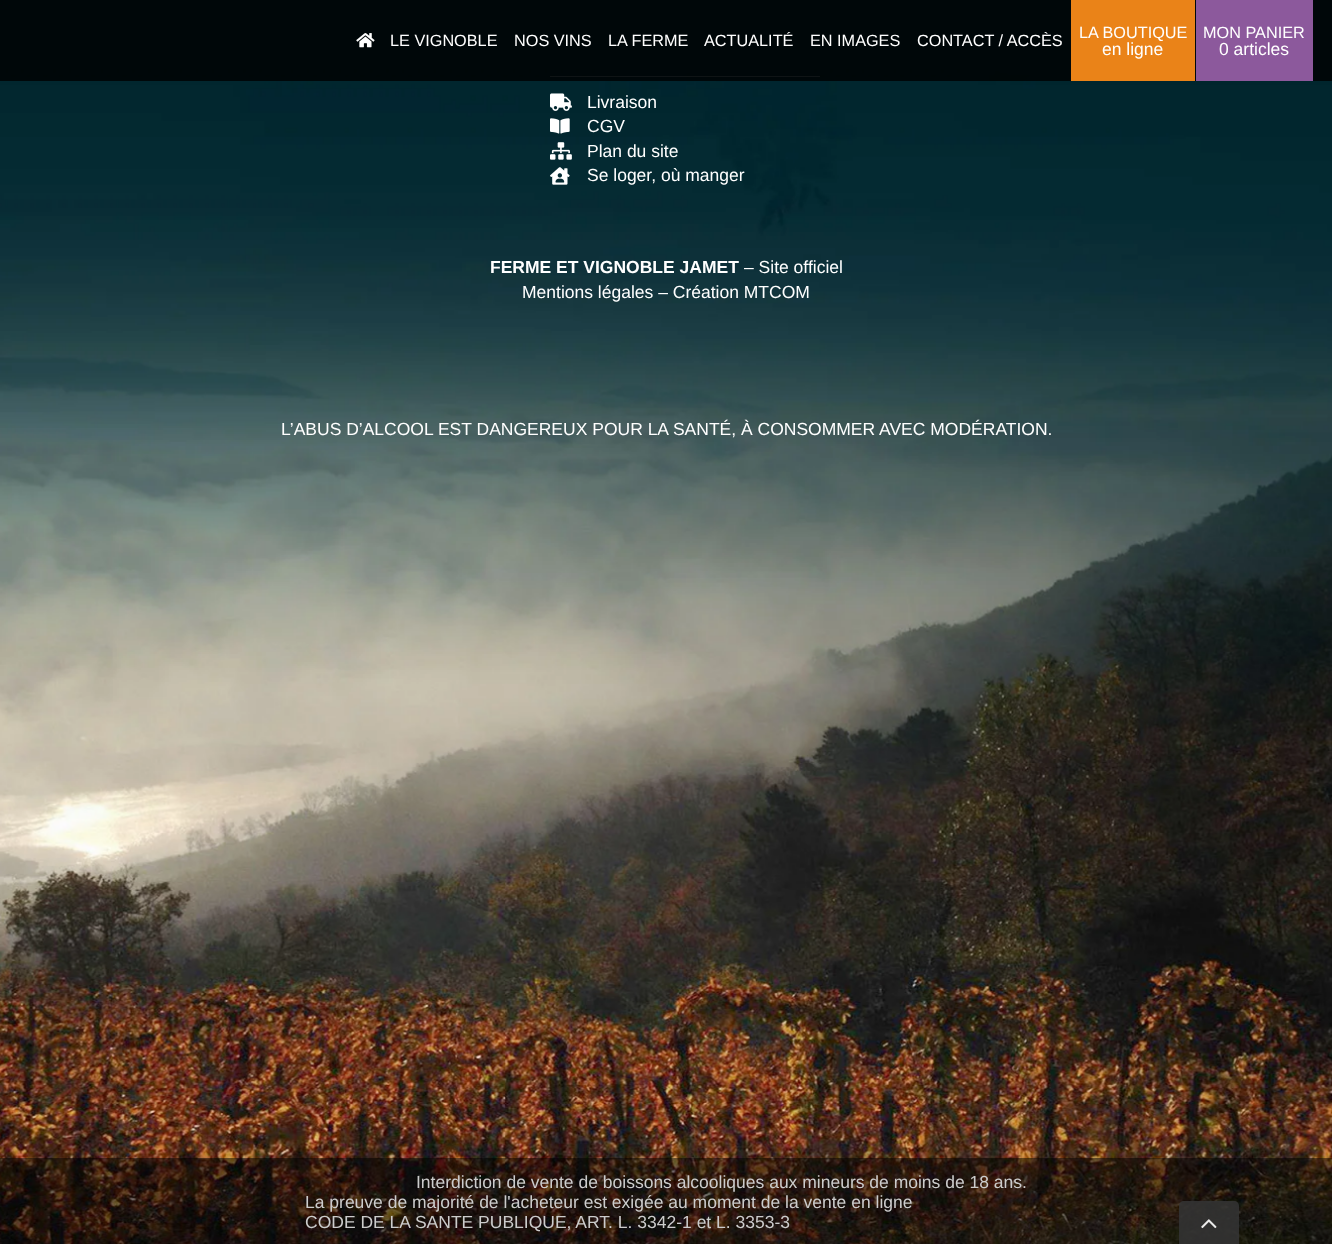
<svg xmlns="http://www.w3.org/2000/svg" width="1332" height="1244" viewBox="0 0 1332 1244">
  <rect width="100%" height="100%" fill="rgb(255,255,255)"/>
  <image x="0" y="0" width="1332" height="1244" href="pic2.png"/>
  <rect x="550" y="76" width="270" height="1" fill="rgba(255,255,255,0.3)"/>
  <rect x="0" y="0" width="1332" height="81" fill="rgba(0,0,0,0.8)"/>
  <image x="356" y="33" width="19" height="15" href="pic1.png"/>
  <g font-family="Arimo" font-size="16.25" fill="rgb(255,255,255)">
    <text x="390" y="46">LE VIGNOBLE</text>
    <text x="514" y="46">NOS VINS</text>
    <text x="608" y="46">LA FERME</text>
    <text x="704" y="46">ACTUALITÉ</text>
    <text x="810" y="46">EN IMAGES</text>
    <text x="917" y="46">CONTACT / ACCÈS</text>
  </g>
  <rect x="1071" y="0" width="124" height="81" fill="rgb(234,131,24)"/>
  <text x="1079" y="38" font-family="Arimo" font-size="16.25" fill="rgb(255,255,255)">LA BOUTIQUE</text>
  <text x="1102" y="55" font-family="Arimo" font-size="17.5" fill="rgb(255,255,255)">en ligne</text>
  <rect x="1196" y="0" width="117" height="81" fill="rgb(140,89,156)"/>
  <text x="1203" y="38" font-family="Arimo" font-size="16.25" fill="rgb(255,255,255)">MON PANIER</text>
  <text x="1219" y="55" font-family="Arimo" font-size="17.5" fill="rgb(255,255,255)">0 articles</text>
  <image x="550" y="93" width="22" height="18" href="pic3.png"/>
  <text x="587" y="108" font-family="Arimo" font-size="17.5" fill="rgb(255,255,255)">Livraison</text>
  <image x="550" y="118" width="20" height="16" href="pic4.png"/>
  <text x="587" y="132" font-family="Arimo" font-size="17.5" fill="rgb(255,255,255)">CGV</text>
  <image x="550" y="142" width="22" height="18" href="pic5.png"/>
  <text x="587" y="157" font-family="Arimo" font-size="17.5" fill="rgb(255,255,255)">Plan du site</text>
  <image x="550" y="167" width="20" height="18" href="pic6.png"/>
  <text x="587" y="181" font-family="Arimo" font-size="17.5" fill="rgb(255,255,255)">Se loger, où manger</text>
  <text x="490" y="273" font-family="Arimo" font-size="17.5" font-weight="bold" fill="rgb(255,255,255)">FERME ET VIGNOBLE JAMET</text>
  <g font-family="Arimo" font-size="17.5" fill="rgb(255,255,255)">
    <text x="744" y="273">– Site officiel</text>
    <text x="522" y="298">Mentions légales – Création MTCOM</text>
    <text x="281" y="435">L’ABUS D’ALCOOL EST DANGEREUX POUR LA SANTÉ, À CONSOMMER AVEC MODÉRATION.</text>
  </g>
  <rect x="0" y="1158" width="1332" height="86" fill="rgba(0,0,0,0.5)"/>
  <g font-family="Arimo" font-size="17.5" fill="rgb(204,204,204)">
    <text x="416" y="1188">Interdiction de vente de boissons alcooliques aux mineurs de moins de 18 ans.</text>
    <text>
      <tspan x="305" y="1208">La preuve de majorité de l'acheteur est exigée au moment de la vente en ligne</tspan>
      <tspan x="305" y="1228">CODE DE LA SANTE PUBLIQUE, ART. L. 3342-1 et L. 3353-3</tspan>
    </text>
  </g>
  <path d="M1184 1201H1234C1237 1201 1239 1203 1239 1206V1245H1179V1206C1179 1203 1181 1201 1184 1201Z" fill="rgba(51,51,51,0.9)"/>
  <image x="1201" y="1219" width="16" height="10" href="pic7.png"/>
</svg>
